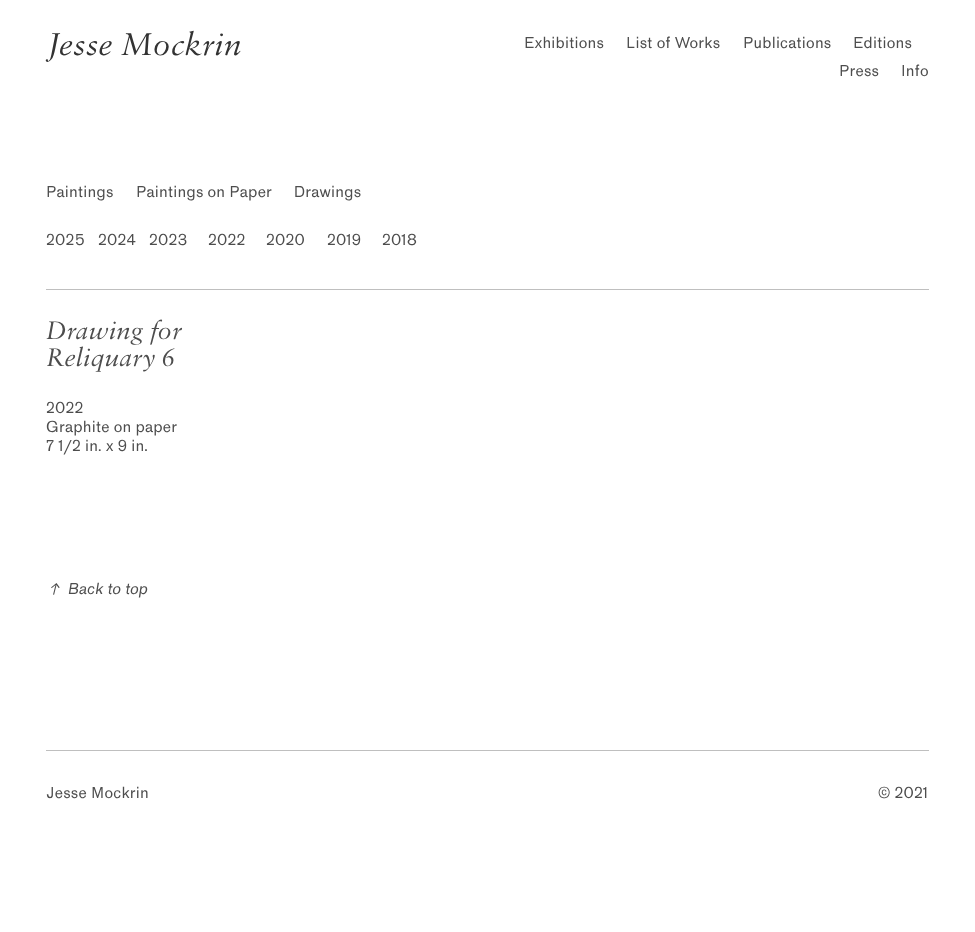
<svg xmlns="http://www.w3.org/2000/svg" width="975" height="932" viewBox="0 0 975 932">
  <rect width="100%" height="100%" fill="rgb(255,255,255)"/>
  <text x="46" y="55" font-family="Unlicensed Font" font-size="33.5" font-style="italic" fill="rgb(51,51,51)">Jesse Mockrin</text>
  <g font-family="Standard" font-size="14.75" letter-spacing="0.25" fill="rgb(77,77,77)">
    <text x="524" y="48">Exhibitions</text>
    <text x="626" y="48">List of Works</text>
    <text x="743" y="48">Publications</text>
    <text x="853" y="48">Editions</text>
    <text x="839" y="76">Press</text>
    <text x="901" y="76">Info</text>
    <text x="46" y="197">Paintings</text>
    <text x="136" y="197">Paintings on Paper</text>
    <text x="294" y="197">Drawings</text>
    <text x="46" y="245">2025</text>
    <text x="98" y="245">2024</text>
    <text x="149" y="245">2023</text>
    <text x="208" y="245">2022</text>
    <text x="266" y="245">2020</text>
    <text x="327" y="245">2019</text>
    <text x="382" y="245">2018</text>
  </g>
  <rect x="46" y="289" width="883" height="1" fill="rgb(191,191,191)"/>
  <g font-family="Unlicensed Font" font-size="27" font-style="italic" fill="rgb(77,77,77)">
    <text>
      <tspan x="46" y="339">Drawing for</tspan>
      <tspan x="46" y="366">Reliquary 6</tspan>
    </text>
  </g>
  <g font-family="Standard" font-size="14.75" letter-spacing="0.25" fill="rgb(77,77,77)">
    <text>
      <tspan x="46" y="413">2022</tspan>
      <tspan x="46" y="432">Graphite on paper</tspan>
      <tspan x="46" y="451">7 1/2 in. x 9 in.</tspan>
    </text>
  </g>
  <image x="51" y="583" width="9" height="12" href="pic1.png"/>
  <text x="67" y="594" font-family="Standard" font-size="14.75" font-style="italic" letter-spacing="0.25" fill="rgb(77,77,77)">Back to top</text>
  <rect x="46" y="750" width="883" height="1" fill="rgb(191,191,191)"/>
  <g font-family="Standard" font-size="14.75" letter-spacing="0.25" fill="rgb(77,77,77)">
    <text x="46" y="798">Jesse</text>
    <text x="91" y="798">Mockrin</text>
    <text x="878" y="798">© 2021</text>
  </g>
</svg>
